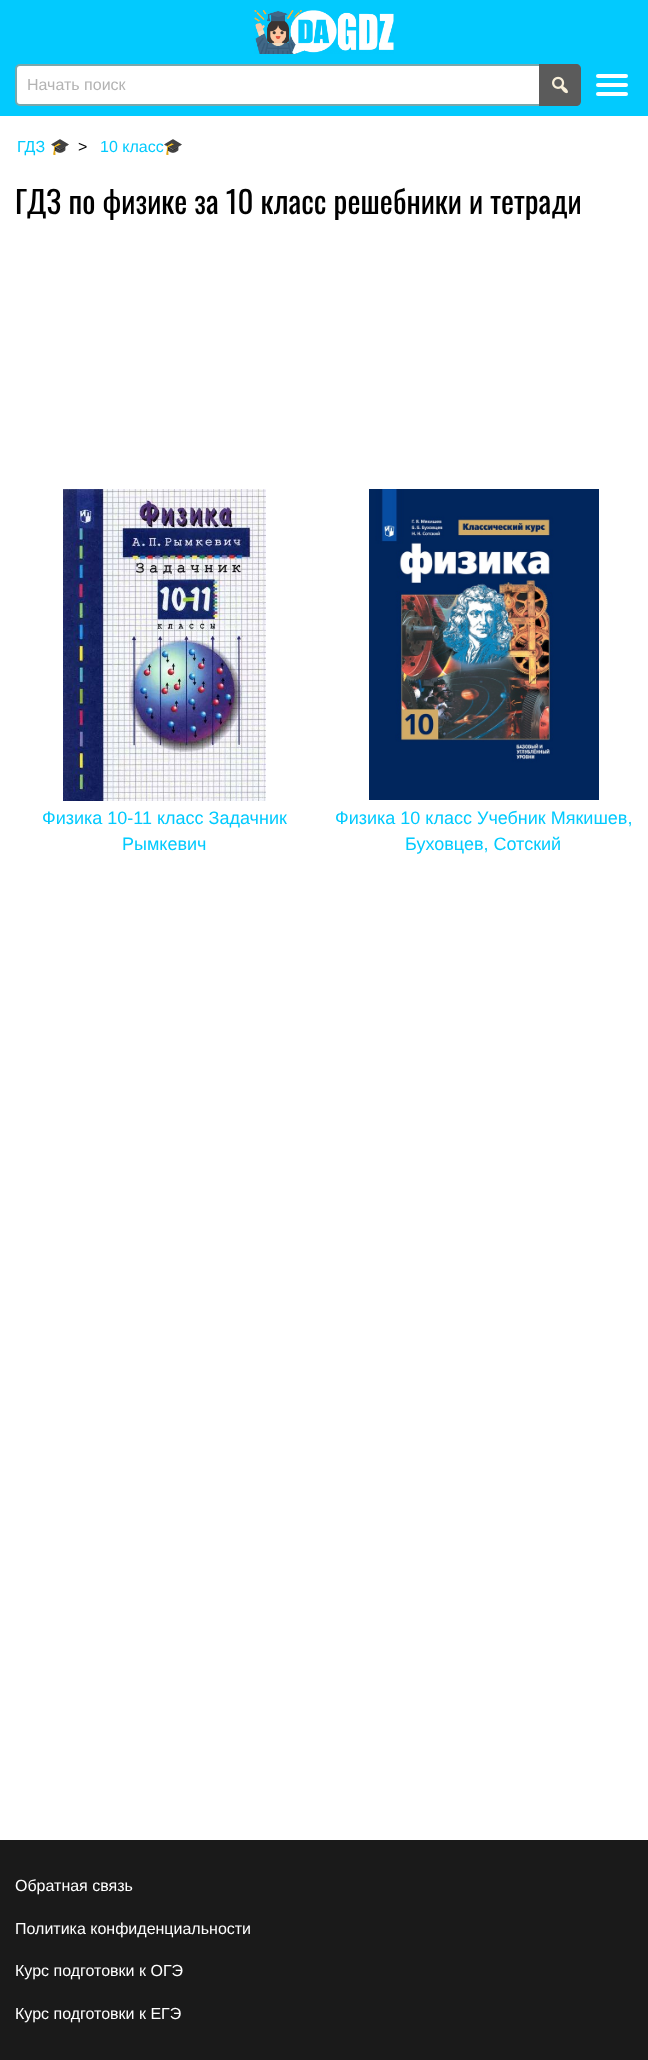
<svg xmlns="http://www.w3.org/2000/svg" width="648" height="2060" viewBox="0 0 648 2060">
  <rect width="100%" height="100%" fill="rgb(255,255,255)"/>
  <rect x="0" y="0" width="648" height="116" fill="rgb(2,202,254)"/>
  <image x="254" y="10" width="140" height="44" href="pic1.png"/>
  <rect x="16" y="65" width="564" height="40" rx="4" fill="rgb(255,255,255)" stroke="rgb(123,167,171)" stroke-width="2"/>
  <text x="27" y="90" font-family="Liberation Sans" font-size="16" fill="rgb(179,179,179)">Начать поиск</text>
  <path d="M539 64H576C579 64 581 66 581 69V101C581 104 579 106 576 106H539Z" fill="rgb(91,91,91)"/>
  <image x="552" y="76" width="16" height="18" href="pic2.png"/>
  <rect x="596" y="83" width="32" height="4" rx="2" fill="rgb(255,255,255)"/>
  <rect x="596" y="74" width="32" height="4" rx="2" fill="rgb(255,255,255)"/>
  <rect x="596" y="92" width="32" height="4" rx="2" fill="rgb(255,255,255)"/>
  <text x="17" y="152" font-family="Liberation Sans" font-size="16" fill="rgb(2,202,254)">ГДЗ</text>
  <text x="50" y="152" font-family="Noto Color Emoji" font-size="16" fill="rgb(2,202,254)">🎓</text>
  <text x="78" y="152" font-family="Liberation Sans" font-size="16" fill="rgb(0,0,0)">&gt;</text>
  <text x="100" y="152" font-family="Liberation Sans" font-size="16" fill="rgb(2,202,254)">10 класс</text>
  <text x="163" y="152" font-family="Noto Color Emoji" font-size="16" fill="rgb(2,202,254)">🎓</text>
  <text x="15" y="214" font-family="Oswald" font-size="31" fill="rgb(0,0,0)">ГДЗ по физике за 10 класс решебники и тетради</text>
  <image x="63" y="489" width="203" height="312" href="pic3.png"/>
  <g font-family="Liberation Sans" font-size="18" fill="rgb(2,202,254)">
    <text x="42" y="824">Физика 10-11 класс Задачник</text>
    <text x="122" y="850">Рымкевич</text>
  </g>
  <image x="369" y="489" width="230" height="311" href="pic4.png"/>
  <g font-family="Liberation Sans" font-size="18" fill="rgb(2,202,254)">
    <text x="335" y="824">Физика 10 класс Учебник Мякишев,</text>
    <text x="405" y="850">Буховцев, Сотский</text>
  </g>
  <rect x="0" y="1840" width="648" height="220" fill="rgb(26,26,26)"/>
  <g font-family="Liberation Sans" font-size="16" fill="rgb(255,255,255)">
    <text x="15" y="1891">Обратная связь</text>
    <text x="15" y="1934">Политика конфиденциальности</text>
    <text x="15" y="1976">Курс подготовки к ОГЭ</text>
    <text x="15" y="2019">Курс подготовки к ЕГЭ</text>
  </g>
</svg>
